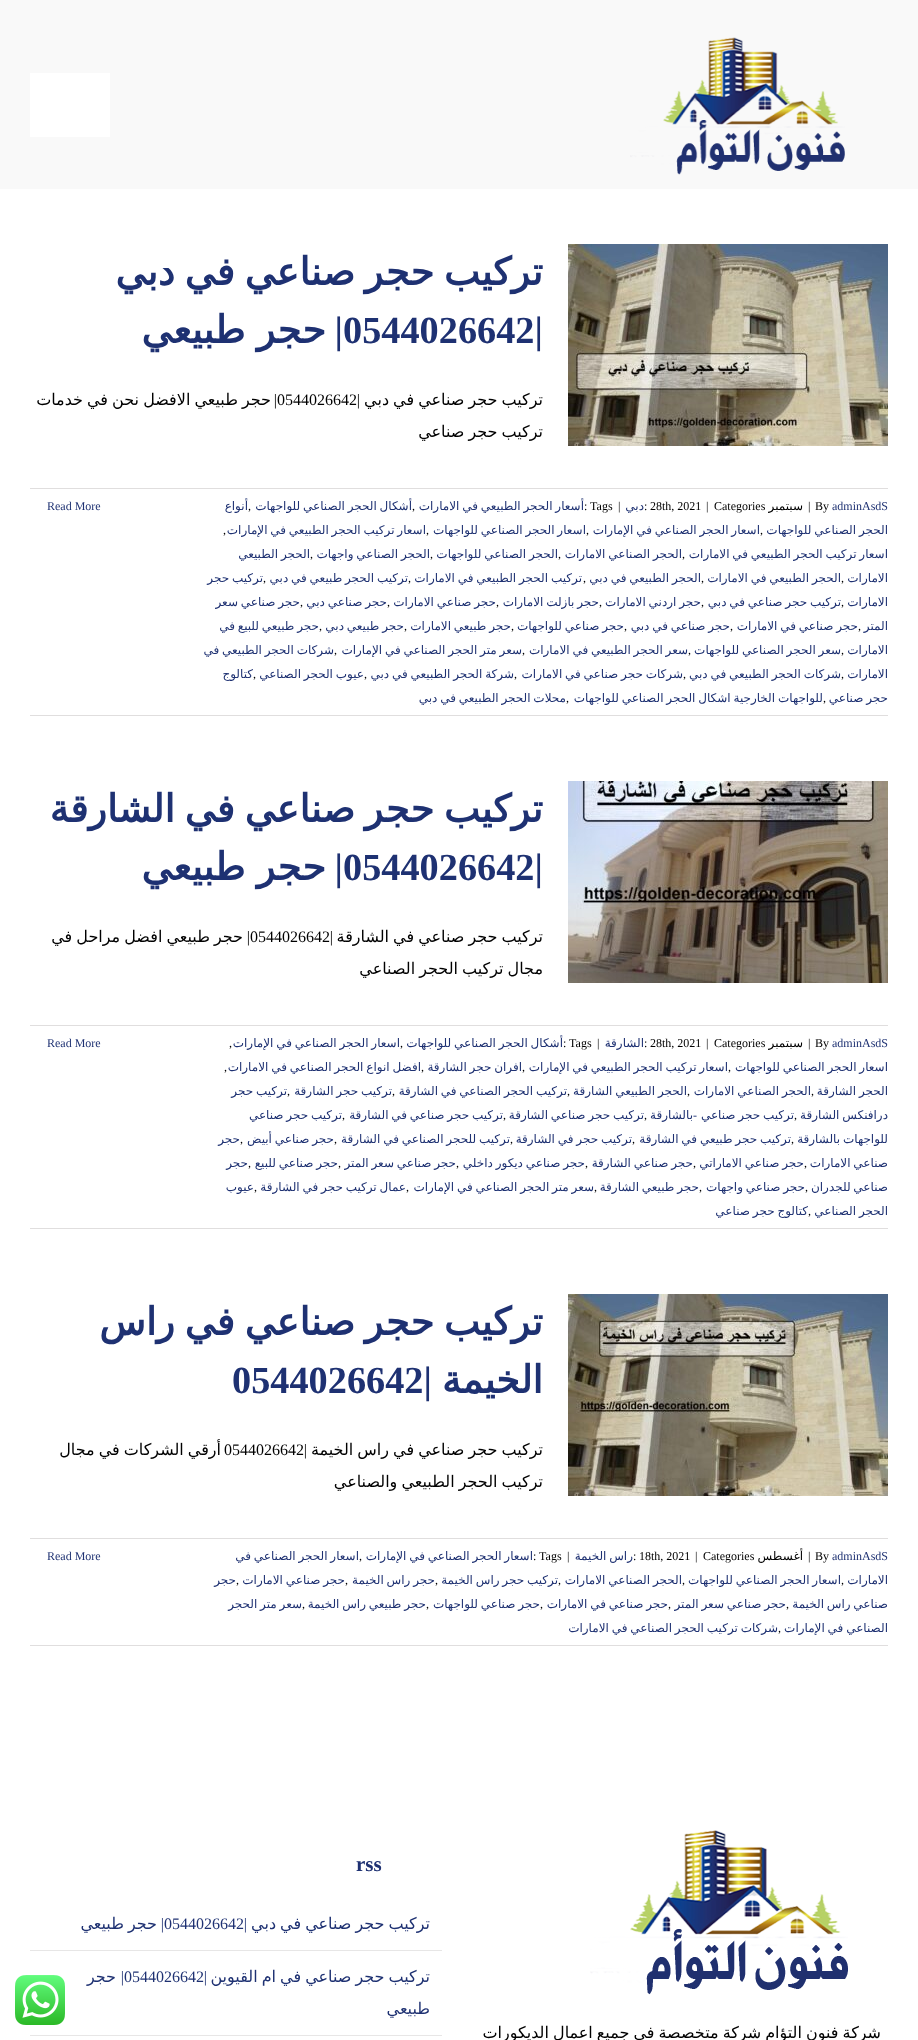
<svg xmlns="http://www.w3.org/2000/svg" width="918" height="2040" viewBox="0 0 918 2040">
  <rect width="100%" height="100%" fill="rgb(255,255,255)"/>
  <rect x="0" y="0" width="918" height="189" fill="rgb(249,249,249)"/>
  <image x="630" y="37" width="215" height="138" href="pic1.png"/>
  <rect x="30" y="73" width="80" height="64" fill="rgb(255,255,255)"/>
  <image x="568" y="244" width="320" height="202" href="pic2.png"/>
  <text x="543" y="285" word-spacing="-2.5" font-family="DejaVu Sans" font-size="38.3" font-weight="bold" direction="rtl" fill="rgb(30,49,114)">تركيب حجر صناعي في دبي</text>
  <text x="343" y="343" font-family="Liberation Serif" font-size="38.3" font-weight="bold" fill="rgb(30,49,114)">0544026642|</text>
  <text x="343" y="343" font-family="Liberation Serif" font-size="38.3" font-weight="bold" direction="rtl" fill="rgb(30,49,114)">|</text>
  <text x="326" y="343" word-spacing="-1" font-family="DejaVu Sans" font-size="38.3" font-weight="bold" direction="rtl" fill="rgb(30,49,114)">حجر طبيعي</text>
  <text x="543" y="405" word-spacing="-1" font-family="DejaVu Sans" font-size="16" direction="rtl" fill="rgb(0,0,0)">تركيب حجر صناعي في دبي</text>
  <text x="360" y="405" font-family="Liberation Serif" font-size="16" direction="rtl" fill="rgb(0,0,0)">|</text>
  <text x="277" y="405" font-family="Liberation Serif" font-size="16" fill="rgb(0,0,0)">0544026642</text>
  <text x="277" y="405" font-family="Liberation Serif" font-size="16" direction="rtl" fill="rgb(0,0,0)">|</text>
  <g font-family="DejaVu Sans" font-size="16" direction="rtl" fill="rgb(0,0,0)">
    <text x="271" y="405" word-spacing="-1">حجر طبيعي الافضل نحن في خدمات</text>
    <text x="543" y="437" word-spacing="-1">تركيب حجر صناعي</text>
  </g>
  <rect x="30" y="488" width="858" height="1" fill="rgb(224,222,222)"/>
  <rect x="30" y="715" width="858" height="1" fill="rgb(224,222,222)"/>
  <text x="832" y="510" font-family="Liberation Serif" font-size="12" fill="rgb(30,49,114)">adminAsdS</text>
  <g font-family="Liberation Serif" font-size="12" fill="rgb(0,0,0)">
    <text x="815" y="510">By</text>
    <text x="808" y="510">|</text>
  </g>
  <text x="803" y="510" font-family="DejaVu Sans" font-size="12" direction="rtl" fill="rgb(0,0,0)">سبتمبر</text>
  <g font-family="Liberation Serif" font-size="12" fill="rgb(0,0,0)">
    <text x="714" y="510">Categories</text>
    <text x="706" y="510">|</text>
    <text x="650" y="510">28th, 2021</text>
    <text x="644" y="510">:</text>
  </g>
  <text x="644" y="510" font-family="DejaVu Sans" font-size="12" direction="rtl" fill="rgb(30,49,114)">دبي</text>
  <g font-family="Liberation Serif" font-size="12" fill="rgb(0,0,0)">
    <text x="618" y="510">|</text>
    <text x="584" y="510">: Tags</text>
  </g>
  <text x="584" y="510" word-spacing="-1" font-family="DejaVu Sans" font-size="12" direction="rtl" fill="rgb(30,49,114)">أسعار الحجر الطبيعي في الامارات</text>
  <text x="412" y="510" font-family="Liberation Serif" font-size="12" fill="rgb(0,0,0)">,</text>
  <text x="412" y="510" word-spacing="-1" font-family="DejaVu Sans" font-size="12" direction="rtl" fill="rgb(30,49,114)">أشكال الحجر الصناعي للواجهات</text>
  <text x="248" y="510" font-family="Liberation Serif" font-size="12" fill="rgb(0,0,0)">,</text>
  <g font-family="DejaVu Sans" font-size="12" direction="rtl" fill="rgb(30,49,114)">
    <text x="248" y="510">أنواع</text>
    <text x="888" y="534" word-spacing="-1">الحجر الصناعي للواجهات</text>
  </g>
  <text x="760" y="534" font-family="Liberation Serif" font-size="12" fill="rgb(0,0,0)">,</text>
  <text x="760" y="534" word-spacing="-1" font-family="DejaVu Sans" font-size="12" direction="rtl" fill="rgb(30,49,114)">اسعار الحجر الصناعي في الإمارات</text>
  <text x="586" y="534" font-family="Liberation Serif" font-size="12" fill="rgb(0,0,0)">,</text>
  <text x="586" y="534" word-spacing="-1" font-family="DejaVu Sans" font-size="12" direction="rtl" fill="rgb(30,49,114)">اسعار الحجر الصناعي للواجهات</text>
  <text x="426" y="534" font-family="Liberation Serif" font-size="12" fill="rgb(0,0,0)">,</text>
  <text x="426" y="534" word-spacing="-1" font-family="DejaVu Sans" font-size="12" direction="rtl" fill="rgb(30,49,114)">اسعار تركيب الحجر الطبيعي في الإمارات</text>
  <text x="223" y="534" font-family="Liberation Serif" font-size="12" fill="rgb(0,0,0)">,</text>
  <text x="888" y="558" word-spacing="-1" font-family="DejaVu Sans" font-size="12" direction="rtl" fill="rgb(30,49,114)">اسعار تركيب الحجر الطبيعي في الامارات</text>
  <text x="682" y="558" font-family="Liberation Serif" font-size="12" fill="rgb(0,0,0)">,</text>
  <text x="682" y="558" word-spacing="-1" font-family="DejaVu Sans" font-size="12" direction="rtl" fill="rgb(30,49,114)">الحجر الصناعي الامارات</text>
  <text x="558" y="558" font-family="Liberation Serif" font-size="12" fill="rgb(0,0,0)">,</text>
  <text x="558" y="558" word-spacing="-1" font-family="DejaVu Sans" font-size="12" direction="rtl" fill="rgb(30,49,114)">الحجر الصناعي للواجهات</text>
  <text x="430" y="558" font-family="Liberation Serif" font-size="12" fill="rgb(0,0,0)">,</text>
  <text x="430" y="558" word-spacing="-1" font-family="DejaVu Sans" font-size="12" direction="rtl" fill="rgb(30,49,114)">الحجر الصناعي واجهات</text>
  <text x="310" y="558" font-family="Liberation Serif" font-size="12" fill="rgb(0,0,0)">,</text>
  <g font-family="DejaVu Sans" font-size="12" direction="rtl" fill="rgb(30,49,114)">
    <text x="310" y="558" word-spacing="-1">الحجر الطبيعي</text>
    <text x="888" y="582">الامارات</text>
  </g>
  <text x="841" y="582" font-family="Liberation Serif" font-size="12" fill="rgb(0,0,0)">,</text>
  <text x="841" y="582" word-spacing="-1" font-family="DejaVu Sans" font-size="12" direction="rtl" fill="rgb(30,49,114)">الحجر الطبيعي في الامارات</text>
  <text x="701" y="582" font-family="Liberation Serif" font-size="12" fill="rgb(0,0,0)">,</text>
  <text x="701" y="582" word-spacing="-1" font-family="DejaVu Sans" font-size="12" direction="rtl" fill="rgb(30,49,114)">الحجر الطبيعي في دبي</text>
  <text x="583" y="582" font-family="Liberation Serif" font-size="12" fill="rgb(0,0,0)">,</text>
  <text x="582" y="582" word-spacing="-1" font-family="DejaVu Sans" font-size="12" direction="rtl" fill="rgb(30,49,114)">تركيب الحجر الطبيعي في الامارات</text>
  <text x="408" y="582" font-family="Liberation Serif" font-size="12" fill="rgb(0,0,0)">,</text>
  <text x="408" y="582" word-spacing="-1" font-family="DejaVu Sans" font-size="12" direction="rtl" fill="rgb(30,49,114)">تركيب الحجر طبيعي في دبي</text>
  <text x="263" y="582" font-family="Liberation Serif" font-size="12" fill="rgb(0,0,0)">,</text>
  <g font-family="DejaVu Sans" font-size="12" direction="rtl" fill="rgb(30,49,114)">
    <text x="263" y="582" word-spacing="-1">تركيب حجر</text>
    <text x="888" y="606">الامارات</text>
  </g>
  <text x="841" y="606" font-family="Liberation Serif" font-size="12" fill="rgb(0,0,0)">,</text>
  <text x="841" y="606" word-spacing="-1" font-family="DejaVu Sans" font-size="12" direction="rtl" fill="rgb(30,49,114)">تركيب حجر صناعي في دبي</text>
  <text x="701" y="606" font-family="Liberation Serif" font-size="12" fill="rgb(0,0,0)">,</text>
  <text x="701" y="606" word-spacing="-1" font-family="DejaVu Sans" font-size="12" direction="rtl" fill="rgb(30,49,114)">حجر اردني الامارات</text>
  <text x="599" y="606" font-family="Liberation Serif" font-size="12" fill="rgb(0,0,0)">,</text>
  <text x="599" y="606" word-spacing="-1" font-family="DejaVu Sans" font-size="12" direction="rtl" fill="rgb(30,49,114)">حجر بازلت الامارات</text>
  <text x="496" y="606" font-family="Liberation Serif" font-size="12" fill="rgb(0,0,0)">,</text>
  <text x="496" y="606" word-spacing="-1" font-family="DejaVu Sans" font-size="12" direction="rtl" fill="rgb(30,49,114)">حجر صناعي الامارات</text>
  <text x="387" y="606" font-family="Liberation Serif" font-size="12" fill="rgb(0,0,0)">,</text>
  <text x="387" y="606" word-spacing="-1" font-family="DejaVu Sans" font-size="12" direction="rtl" fill="rgb(30,49,114)">حجر صناعي دبي</text>
  <text x="300" y="606" font-family="Liberation Serif" font-size="12" fill="rgb(0,0,0)">,</text>
  <g font-family="DejaVu Sans" font-size="12" direction="rtl" fill="rgb(30,49,114)">
    <text x="300" y="606" word-spacing="-1">حجر صناعي سعر</text>
    <text x="888" y="630">المتر</text>
  </g>
  <text x="858" y="630" font-family="Liberation Serif" font-size="12" fill="rgb(0,0,0)">,</text>
  <text x="858" y="630" word-spacing="-1" font-family="DejaVu Sans" font-size="12" direction="rtl" fill="rgb(30,49,114)">حجر صناعي في الامارات</text>
  <text x="730" y="630" font-family="Liberation Serif" font-size="12" fill="rgb(0,0,0)">,</text>
  <text x="730" y="630" word-spacing="-1" font-family="DejaVu Sans" font-size="12" direction="rtl" fill="rgb(30,49,114)">حجر صناعي في دبي</text>
  <text x="624" y="630" font-family="Liberation Serif" font-size="12" fill="rgb(0,0,0)">,</text>
  <text x="624" y="630" word-spacing="-1" font-family="DejaVu Sans" font-size="12" direction="rtl" fill="rgb(30,49,114)">حجر صناعي للواجهات</text>
  <text x="511" y="630" font-family="Liberation Serif" font-size="12" fill="rgb(0,0,0)">,</text>
  <text x="511" y="630" word-spacing="-1" font-family="DejaVu Sans" font-size="12" direction="rtl" fill="rgb(30,49,114)">حجر طبيعي الامارات</text>
  <text x="404" y="630" font-family="Liberation Serif" font-size="12" fill="rgb(0,0,0)">,</text>
  <text x="404" y="630" word-spacing="-1" font-family="DejaVu Sans" font-size="12" direction="rtl" fill="rgb(30,49,114)">حجر طبيعي دبي</text>
  <text x="319" y="630" font-family="Liberation Serif" font-size="12" fill="rgb(0,0,0)">,</text>
  <g font-family="DejaVu Sans" font-size="12" direction="rtl" fill="rgb(30,49,114)">
    <text x="319" y="630" word-spacing="-1">حجر طبيعي للبيع في</text>
    <text x="888" y="654">الامارات</text>
  </g>
  <text x="841" y="654" font-family="Liberation Serif" font-size="12" fill="rgb(0,0,0)">,</text>
  <text x="841" y="654" word-spacing="-1" font-family="DejaVu Sans" font-size="12" direction="rtl" fill="rgb(30,49,114)">سعر الحجر الصناعي للواجهات</text>
  <text x="688" y="654" font-family="Liberation Serif" font-size="12" fill="rgb(0,0,0)">,</text>
  <text x="688" y="654" word-spacing="-1" font-family="DejaVu Sans" font-size="12" direction="rtl" fill="rgb(30,49,114)">سعر الحجر الطبيعي في الامارات</text>
  <text x="522" y="654" font-family="Liberation Serif" font-size="12" fill="rgb(0,0,0)">,</text>
  <text x="522" y="654" word-spacing="-1" font-family="DejaVu Sans" font-size="12" direction="rtl" fill="rgb(30,49,114)">سعر متر الحجر الصناعي في الإمارات</text>
  <text x="334" y="654" font-family="Liberation Serif" font-size="12" fill="rgb(0,0,0)">,</text>
  <g font-family="DejaVu Sans" font-size="12" direction="rtl" fill="rgb(30,49,114)">
    <text x="334" y="654" word-spacing="-1">شركات الحجر الطبيعي في</text>
    <text x="888" y="678">الامارات</text>
  </g>
  <text x="841" y="678" font-family="Liberation Serif" font-size="12" fill="rgb(0,0,0)">,</text>
  <text x="841" y="678" word-spacing="-1" font-family="DejaVu Sans" font-size="12" direction="rtl" fill="rgb(30,49,114)">شركات الحجر الطبيعي في دبي</text>
  <text x="683" y="678" font-family="Liberation Serif" font-size="12" fill="rgb(0,0,0)">,</text>
  <text x="683" y="678" word-spacing="-1" font-family="DejaVu Sans" font-size="12" direction="rtl" fill="rgb(30,49,114)">شركات حجر صناعي في الامارات</text>
  <text x="514" y="678" font-family="Liberation Serif" font-size="12" fill="rgb(0,0,0)">,</text>
  <text x="514" y="678" word-spacing="-1" font-family="DejaVu Sans" font-size="12" direction="rtl" fill="rgb(30,49,114)">شركة الحجر الطبيعي في دبي</text>
  <text x="364" y="678" font-family="Liberation Serif" font-size="12" fill="rgb(0,0,0)">,</text>
  <text x="364" y="678" word-spacing="-1" font-family="DejaVu Sans" font-size="12" direction="rtl" fill="rgb(30,49,114)">عيوب الحجر الصناعي</text>
  <text x="253" y="678" font-family="Liberation Serif" font-size="12" fill="rgb(0,0,0)">,</text>
  <g font-family="DejaVu Sans" font-size="12" direction="rtl" fill="rgb(30,49,114)">
    <text x="253" y="678">كتالوج</text>
    <text x="888" y="702" word-spacing="-1">حجر صناعي</text>
  </g>
  <text x="823" y="702" font-family="Liberation Serif" font-size="12" fill="rgb(0,0,0)">,</text>
  <text x="823" y="702" word-spacing="-1" font-family="DejaVu Sans" font-size="12" direction="rtl" fill="rgb(30,49,114)">للواجهات الخارجية اشكال الحجر الصناعي للواجهات</text>
  <text x="566" y="702" font-family="Liberation Serif" font-size="12" fill="rgb(0,0,0)">,</text>
  <text x="566" y="702" word-spacing="-1" font-family="DejaVu Sans" font-size="12" direction="rtl" fill="rgb(30,49,114)">محلات الحجر الطبيعي في دبي</text>
  <text x="47" y="510" font-family="Liberation Serif" font-size="12" fill="rgb(30,49,114)">Read More</text>
  <image x="568" y="781" width="320" height="202" href="pic3.png"/>
  <text x="543" y="822" word-spacing="-2.5" font-family="DejaVu Sans" font-size="38.3" font-weight="bold" direction="rtl" fill="rgb(30,49,114)">تركيب حجر صناعي في الشارقة</text>
  <text x="343" y="880" font-family="Liberation Serif" font-size="38.3" font-weight="bold" fill="rgb(30,49,114)">0544026642|</text>
  <text x="343" y="880" font-family="Liberation Serif" font-size="38.3" font-weight="bold" direction="rtl" fill="rgb(30,49,114)">|</text>
  <text x="326" y="880" word-spacing="-1" font-family="DejaVu Sans" font-size="38.3" font-weight="bold" direction="rtl" fill="rgb(30,49,114)">حجر طبيعي</text>
  <text x="543" y="942" word-spacing="-1" font-family="DejaVu Sans" font-size="16" direction="rtl" fill="rgb(0,0,0)">تركيب حجر صناعي في الشارقة</text>
  <text x="333" y="942" font-family="Liberation Serif" font-size="16" direction="rtl" fill="rgb(0,0,0)">|</text>
  <text x="250" y="942" font-family="Liberation Serif" font-size="16" fill="rgb(0,0,0)">0544026642</text>
  <text x="250" y="942" font-family="Liberation Serif" font-size="16" direction="rtl" fill="rgb(0,0,0)">|</text>
  <g font-family="DejaVu Sans" font-size="16" direction="rtl" fill="rgb(0,0,0)">
    <text x="243" y="942" word-spacing="-1">حجر طبيعي افضل مراحل في</text>
    <text x="543" y="974" word-spacing="-1">مجال تركيب الحجر الصناعي</text>
  </g>
  <rect x="30" y="1025" width="858" height="1" fill="rgb(224,222,222)"/>
  <rect x="30" y="1228" width="858" height="1" fill="rgb(224,222,222)"/>
  <text x="832" y="1047" font-family="Liberation Serif" font-size="12" fill="rgb(30,49,114)">adminAsdS</text>
  <g font-family="Liberation Serif" font-size="12" fill="rgb(0,0,0)">
    <text x="815" y="1047">By</text>
    <text x="808" y="1047">|</text>
  </g>
  <text x="803" y="1047" font-family="DejaVu Sans" font-size="12" direction="rtl" fill="rgb(0,0,0)">سبتمبر</text>
  <g font-family="Liberation Serif" font-size="12" fill="rgb(0,0,0)">
    <text x="714" y="1047">Categories</text>
    <text x="706" y="1047">|</text>
    <text x="650" y="1047">28th, 2021</text>
    <text x="644" y="1047">:</text>
  </g>
  <text x="644" y="1047" font-family="DejaVu Sans" font-size="12" direction="rtl" fill="rgb(30,49,114)">الشارقة</text>
  <g font-family="Liberation Serif" font-size="12" fill="rgb(0,0,0)">
    <text x="597" y="1047">|</text>
    <text x="563" y="1047">: Tags</text>
  </g>
  <text x="563" y="1047" word-spacing="-1" font-family="DejaVu Sans" font-size="12" direction="rtl" fill="rgb(30,49,114)">أشكال الحجر الصناعي للواجهات</text>
  <text x="400" y="1047" font-family="Liberation Serif" font-size="12" fill="rgb(0,0,0)">,</text>
  <text x="400" y="1047" word-spacing="-1" font-family="DejaVu Sans" font-size="12" direction="rtl" fill="rgb(30,49,114)">اسعار الحجر الصناعي في الإمارات</text>
  <text x="229" y="1047" font-family="Liberation Serif" font-size="12" fill="rgb(0,0,0)">,</text>
  <text x="888" y="1071" word-spacing="-1" font-family="DejaVu Sans" font-size="12" direction="rtl" fill="rgb(30,49,114)">اسعار الحجر الصناعي للواجهات</text>
  <text x="728" y="1071" font-family="Liberation Serif" font-size="12" fill="rgb(0,0,0)">,</text>
  <text x="728" y="1071" word-spacing="-1" font-family="DejaVu Sans" font-size="12" direction="rtl" fill="rgb(30,49,114)">اسعار تركيب الحجر الطبيعي في الإمارات</text>
  <text x="522" y="1071" font-family="Liberation Serif" font-size="12" fill="rgb(0,0,0)">,</text>
  <text x="522" y="1071" word-spacing="-1" font-family="DejaVu Sans" font-size="12" direction="rtl" fill="rgb(30,49,114)">افران حجر الشارقة</text>
  <text x="421" y="1071" font-family="Liberation Serif" font-size="12" fill="rgb(0,0,0)">,</text>
  <text x="421" y="1071" word-spacing="-1" font-family="DejaVu Sans" font-size="12" direction="rtl" fill="rgb(30,49,114)">افضل انواع الحجر الصناعي في الامارات</text>
  <text x="224" y="1071" font-family="Liberation Serif" font-size="12" fill="rgb(0,0,0)">,</text>
  <text x="888" y="1095" word-spacing="-1" font-family="DejaVu Sans" font-size="12" direction="rtl" fill="rgb(30,49,114)">الحجر الشارقة</text>
  <text x="811" y="1095" font-family="Liberation Serif" font-size="12" fill="rgb(0,0,0)">,</text>
  <text x="811" y="1095" word-spacing="-1" font-family="DejaVu Sans" font-size="12" direction="rtl" fill="rgb(30,49,114)">الحجر الصناعي الامارات</text>
  <text x="687" y="1095" font-family="Liberation Serif" font-size="12" fill="rgb(0,0,0)">,</text>
  <text x="687" y="1095" word-spacing="-1" font-family="DejaVu Sans" font-size="12" direction="rtl" fill="rgb(30,49,114)">الحجر الطبيعي الشارقة</text>
  <text x="567" y="1095" font-family="Liberation Serif" font-size="12" fill="rgb(0,0,0)">,</text>
  <text x="567" y="1095" word-spacing="-1" font-family="DejaVu Sans" font-size="12" direction="rtl" fill="rgb(30,49,114)">تركيب الحجر الصناعي في الشارقة</text>
  <text x="392" y="1095" font-family="Liberation Serif" font-size="12" fill="rgb(0,0,0)">,</text>
  <text x="392" y="1095" word-spacing="-1" font-family="DejaVu Sans" font-size="12" direction="rtl" fill="rgb(30,49,114)">تركيب حجر الشارقة</text>
  <text x="287" y="1095" font-family="Liberation Serif" font-size="12" fill="rgb(0,0,0)">,</text>
  <g font-family="DejaVu Sans" font-size="12" direction="rtl" fill="rgb(30,49,114)">
    <text x="287" y="1095" word-spacing="-1">تركيب حجر</text>
    <text x="888" y="1119" word-spacing="-1">درافنكس الشارقة</text>
    <text x="794" y="1119" word-spacing="-1">تركيب حجر صناعي</text>
  </g>
  <text x="697" y="1119" font-family="Liberation Serif" font-size="12" direction="rtl" fill="rgb(30,49,114)">-</text>
  <text x="693" y="1119" font-family="DejaVu Sans" font-size="12" direction="rtl" fill="rgb(30,49,114)">بالشارقة</text>
  <text x="644" y="1119" font-family="Liberation Serif" font-size="12" fill="rgb(0,0,0)">,</text>
  <g font-family="DejaVu Sans" font-size="12" direction="rtl" fill="rgb(30,49,114)">
    <text x="644" y="1119" word-spacing="-1">تركيب حجر صناعي الشارقة</text>
    <text x="503" y="1119" word-spacing="-1">تركيب حجر صناعي في الشارقة</text>
    <text x="342" y="1119" word-spacing="-1">تركيب حجر صناعي</text>
  </g>
  <g font-family="Liberation Serif" font-size="12" fill="rgb(0,0,0)">
    <text x="794" y="1119">,</text>
    <text x="503" y="1119">,</text>
    <text x="342" y="1119">,</text>
  </g>
  <text x="888" y="1143" word-spacing="-1" font-family="DejaVu Sans" font-size="12" direction="rtl" fill="rgb(30,49,114)">للواجهات بالشارقة</text>
  <text x="791" y="1143" font-family="Liberation Serif" font-size="12" fill="rgb(0,0,0)">,</text>
  <text x="791" y="1143" word-spacing="-1" font-family="DejaVu Sans" font-size="12" direction="rtl" fill="rgb(30,49,114)">تركيب حجر طبيعي في الشارقة</text>
  <text x="632" y="1143" font-family="Liberation Serif" font-size="12" fill="rgb(0,0,0)">,</text>
  <text x="632" y="1143" word-spacing="-1" font-family="DejaVu Sans" font-size="12" direction="rtl" fill="rgb(30,49,114)">تركيب حجر في الشارقة</text>
  <text x="510" y="1143" font-family="Liberation Serif" font-size="12" fill="rgb(0,0,0)">,</text>
  <text x="510" y="1143" word-spacing="-1" font-family="DejaVu Sans" font-size="12" direction="rtl" fill="rgb(30,49,114)">تركيب للحجر الصناعي في الشارقة</text>
  <text x="334" y="1143" font-family="Liberation Serif" font-size="12" fill="rgb(0,0,0)">,</text>
  <text x="334" y="1143" word-spacing="-1" font-family="DejaVu Sans" font-size="12" direction="rtl" fill="rgb(30,49,114)">حجر صناعي أبيض</text>
  <text x="240" y="1143" font-family="Liberation Serif" font-size="12" fill="rgb(0,0,0)">,</text>
  <g font-family="DejaVu Sans" font-size="12" direction="rtl" fill="rgb(30,49,114)">
    <text x="240" y="1143">حجر</text>
    <text x="888" y="1167" word-spacing="-1">صناعي الامارات</text>
  </g>
  <text x="804" y="1167" font-family="Liberation Serif" font-size="12" fill="rgb(0,0,0)">,</text>
  <text x="804" y="1167" word-spacing="-1" font-family="DejaVu Sans" font-size="12" direction="rtl" fill="rgb(30,49,114)">حجر صناعي الاماراتي</text>
  <text x="693" y="1167" font-family="Liberation Serif" font-size="12" fill="rgb(0,0,0)">,</text>
  <text x="693" y="1167" word-spacing="-1" font-family="DejaVu Sans" font-size="12" direction="rtl" fill="rgb(30,49,114)">حجر صناعي الشارقة</text>
  <text x="585" y="1167" font-family="Liberation Serif" font-size="12" fill="rgb(0,0,0)">,</text>
  <text x="585" y="1167" word-spacing="-1" font-family="DejaVu Sans" font-size="12" direction="rtl" fill="rgb(30,49,114)">حجر صناعي ديكور داخلي</text>
  <text x="456" y="1167" font-family="Liberation Serif" font-size="12" fill="rgb(0,0,0)">,</text>
  <text x="456" y="1167" word-spacing="-1" font-family="DejaVu Sans" font-size="12" direction="rtl" fill="rgb(30,49,114)">حجر صناعي سعر المتر</text>
  <text x="338" y="1167" font-family="Liberation Serif" font-size="12" fill="rgb(0,0,0)">,</text>
  <text x="338" y="1167" word-spacing="-1" font-family="DejaVu Sans" font-size="12" direction="rtl" fill="rgb(30,49,114)">حجر صناعي للبيع</text>
  <text x="248" y="1167" font-family="Liberation Serif" font-size="12" fill="rgb(0,0,0)">,</text>
  <g font-family="DejaVu Sans" font-size="12" direction="rtl" fill="rgb(30,49,114)">
    <text x="248" y="1167">حجر</text>
    <text x="888" y="1191" word-spacing="-1">صناعي للجدران</text>
  </g>
  <text x="805" y="1191" font-family="Liberation Serif" font-size="12" fill="rgb(0,0,0)">,</text>
  <text x="805" y="1191" word-spacing="-1" font-family="DejaVu Sans" font-size="12" direction="rtl" fill="rgb(30,49,114)">حجر صناعي واجهات</text>
  <text x="699" y="1191" font-family="Liberation Serif" font-size="12" fill="rgb(0,0,0)">,</text>
  <text x="699" y="1191" word-spacing="-1" font-family="DejaVu Sans" font-size="12" direction="rtl" fill="rgb(30,49,114)">حجر طبيعي الشارقة</text>
  <text x="594" y="1191" font-family="Liberation Serif" font-size="12" fill="rgb(0,0,0)">,</text>
  <text x="594" y="1191" word-spacing="-1" font-family="DejaVu Sans" font-size="12" direction="rtl" fill="rgb(30,49,114)">سعر متر الحجر الصناعي في الإمارات</text>
  <text x="406" y="1191" font-family="Liberation Serif" font-size="12" fill="rgb(0,0,0)">,</text>
  <text x="406" y="1191" word-spacing="-1" font-family="DejaVu Sans" font-size="12" direction="rtl" fill="rgb(30,49,114)">عمال تركيب حجر في الشارقة</text>
  <text x="254" y="1191" font-family="Liberation Serif" font-size="12" fill="rgb(0,0,0)">,</text>
  <g font-family="DejaVu Sans" font-size="12" direction="rtl" fill="rgb(30,49,114)">
    <text x="254" y="1191">عيوب</text>
    <text x="888" y="1215" word-spacing="-1">الحجر الصناعي</text>
  </g>
  <text x="808" y="1215" font-family="Liberation Serif" font-size="12" fill="rgb(0,0,0)">,</text>
  <text x="808" y="1215" word-spacing="-1" font-family="DejaVu Sans" font-size="12" direction="rtl" fill="rgb(30,49,114)">كتالوج حجر صناعي</text>
  <text x="47" y="1047" font-family="Liberation Serif" font-size="12" fill="rgb(30,49,114)">Read More</text>
  <image x="568" y="1294" width="320" height="202" href="pic4.png"/>
  <g font-family="DejaVu Sans" font-size="38.3" font-weight="bold" direction="rtl" fill="rgb(30,49,114)">
    <text>
      <tspan x="543" y="1335" word-spacing="-2.5">تركيب حجر صناعي في راس</tspan>
      <tspan x="543" y="1393">الخيمة</tspan>
    </text>
  </g>
  <text x="432" y="1393" font-family="Liberation Serif" font-size="38.3" font-weight="bold" direction="rtl" fill="rgb(30,49,114)">|</text>
  <text x="232" y="1393" font-family="Liberation Serif" font-size="38.3" font-weight="bold" fill="rgb(30,49,114)">0544026642</text>
  <text x="543" y="1455" word-spacing="-1" font-family="DejaVu Sans" font-size="16" direction="rtl" fill="rgb(0,0,0)">تركيب حجر صناعي في راس الخيمة</text>
  <text x="307" y="1455" font-family="Liberation Serif" font-size="16" direction="rtl" fill="rgb(0,0,0)">|</text>
  <text x="224" y="1455" font-family="Liberation Serif" font-size="16" fill="rgb(0,0,0)">0544026642</text>
  <g font-family="DejaVu Sans" font-size="16" direction="rtl" fill="rgb(0,0,0)">
    <text x="221" y="1455" word-spacing="-1">أرقي الشركات في مجال</text>
    <text x="543" y="1487" word-spacing="-1">تركيب الحجر الطبيعي والصناعي</text>
  </g>
  <rect x="30" y="1538" width="858" height="1" fill="rgb(224,222,222)"/>
  <rect x="30" y="1645" width="858" height="1" fill="rgb(224,222,222)"/>
  <text x="832" y="1560" font-family="Liberation Serif" font-size="12" fill="rgb(30,49,114)">adminAsdS</text>
  <g font-family="Liberation Serif" font-size="12" fill="rgb(0,0,0)">
    <text x="815" y="1560">By</text>
    <text x="808" y="1560">|</text>
  </g>
  <text x="803" y="1560" font-family="DejaVu Sans" font-size="12" direction="rtl" fill="rgb(0,0,0)">أغسطس</text>
  <g font-family="Liberation Serif" font-size="12" fill="rgb(0,0,0)">
    <text x="703" y="1560">Categories</text>
    <text x="695" y="1560">|</text>
    <text x="639" y="1560">18th, 2021</text>
    <text x="633" y="1560">:</text>
  </g>
  <text x="633" y="1560" word-spacing="-1" font-family="DejaVu Sans" font-size="12" direction="rtl" fill="rgb(30,49,114)">راس الخيمة</text>
  <g font-family="Liberation Serif" font-size="12" fill="rgb(0,0,0)">
    <text x="567" y="1560">|</text>
    <text x="533" y="1560">: Tags</text>
  </g>
  <text x="533" y="1560" word-spacing="-1" font-family="DejaVu Sans" font-size="12" direction="rtl" fill="rgb(30,49,114)">اسعار الحجر الصناعي في الإمارات</text>
  <text x="359" y="1560" font-family="Liberation Serif" font-size="12" fill="rgb(0,0,0)">,</text>
  <g font-family="DejaVu Sans" font-size="12" direction="rtl" fill="rgb(30,49,114)">
    <text x="359" y="1560" word-spacing="-1">اسعار الحجر الصناعي في</text>
    <text x="888" y="1584">الامارات</text>
  </g>
  <text x="841" y="1584" font-family="Liberation Serif" font-size="12" fill="rgb(0,0,0)">,</text>
  <text x="841" y="1584" word-spacing="-1" font-family="DejaVu Sans" font-size="12" direction="rtl" fill="rgb(30,49,114)">اسعار الحجر الصناعي للواجهات</text>
  <text x="682" y="1584" font-family="Liberation Serif" font-size="12" fill="rgb(0,0,0)">,</text>
  <text x="682" y="1584" word-spacing="-1" font-family="DejaVu Sans" font-size="12" direction="rtl" fill="rgb(30,49,114)">الحجر الصناعي الامارات</text>
  <text x="558" y="1584" font-family="Liberation Serif" font-size="12" fill="rgb(0,0,0)">,</text>
  <text x="558" y="1584" word-spacing="-1" font-family="DejaVu Sans" font-size="12" direction="rtl" fill="rgb(30,49,114)">تركيب حجر راس الخيمة</text>
  <text x="435" y="1584" font-family="Liberation Serif" font-size="12" fill="rgb(0,0,0)">,</text>
  <text x="435" y="1584" word-spacing="-1" font-family="DejaVu Sans" font-size="12" direction="rtl" fill="rgb(30,49,114)">حجر راس الخيمة</text>
  <text x="345" y="1584" font-family="Liberation Serif" font-size="12" fill="rgb(0,0,0)">,</text>
  <text x="345" y="1584" word-spacing="-1" font-family="DejaVu Sans" font-size="12" direction="rtl" fill="rgb(30,49,114)">حجر صناعي الامارات</text>
  <text x="236" y="1584" font-family="Liberation Serif" font-size="12" fill="rgb(0,0,0)">,</text>
  <g font-family="DejaVu Sans" font-size="12" direction="rtl" fill="rgb(30,49,114)">
    <text x="236" y="1584">حجر</text>
    <text x="888" y="1608" word-spacing="-1">صناعي راس الخيمة</text>
  </g>
  <text x="786" y="1608" font-family="Liberation Serif" font-size="12" fill="rgb(0,0,0)">,</text>
  <text x="786" y="1608" word-spacing="-1" font-family="DejaVu Sans" font-size="12" direction="rtl" fill="rgb(30,49,114)">حجر صناعي سعر المتر</text>
  <text x="668" y="1608" font-family="Liberation Serif" font-size="12" fill="rgb(0,0,0)">,</text>
  <text x="668" y="1608" word-spacing="-1" font-family="DejaVu Sans" font-size="12" direction="rtl" fill="rgb(30,49,114)">حجر صناعي في الامارات</text>
  <text x="540" y="1608" font-family="Liberation Serif" font-size="12" fill="rgb(0,0,0)">,</text>
  <text x="540" y="1608" word-spacing="-1" font-family="DejaVu Sans" font-size="12" direction="rtl" fill="rgb(30,49,114)">حجر صناعي للواجهات</text>
  <text x="426" y="1608" font-family="Liberation Serif" font-size="12" fill="rgb(0,0,0)">,</text>
  <text x="426" y="1608" word-spacing="-1" font-family="DejaVu Sans" font-size="12" direction="rtl" fill="rgb(30,49,114)">حجر طبيعي راس الخيمة</text>
  <text x="302" y="1608" font-family="Liberation Serif" font-size="12" fill="rgb(0,0,0)">,</text>
  <g font-family="DejaVu Sans" font-size="12" direction="rtl" fill="rgb(30,49,114)">
    <text x="302" y="1608" word-spacing="-1">سعر متر الحجر</text>
    <text x="888" y="1632" word-spacing="-1">الصناعي في الإمارات</text>
  </g>
  <text x="778" y="1632" font-family="Liberation Serif" font-size="12" fill="rgb(0,0,0)">,</text>
  <text x="778" y="1632" word-spacing="-1" font-family="DejaVu Sans" font-size="12" direction="rtl" fill="rgb(30,49,114)">شركات تركيب الحجر الصناعي في الامارات</text>
  <text x="47" y="1560" font-family="Liberation Serif" font-size="12" fill="rgb(30,49,114)">Read More</text>
  <text x="356" y="1871" font-family="Liberation Serif" font-size="21" font-weight="bold" fill="rgb(30,49,114)">rss</text>
  <rect x="30" y="1950" width="412" height="1" fill="rgb(231,230,230)"/>
  <text x="430" y="1929" word-spacing="-1" font-family="DejaVu Sans" font-size="16" direction="rtl" fill="rgb(30,49,114)">تركيب حجر صناعي في دبي</text>
  <text x="247" y="1929" font-family="Liberation Serif" font-size="16" direction="rtl" fill="rgb(30,49,114)">|</text>
  <text x="164" y="1929" font-family="Liberation Serif" font-size="16" fill="rgb(30,49,114)">0544026642</text>
  <text x="164" y="1929" font-family="Liberation Serif" font-size="16" direction="rtl" fill="rgb(30,49,114)">|</text>
  <text x="157" y="1929" word-spacing="-1" font-family="DejaVu Sans" font-size="16" direction="rtl" fill="rgb(30,49,114)">حجر طبيعي</text>
  <rect x="30" y="2035" width="412" height="1" fill="rgb(231,230,230)"/>
  <text x="430" y="1982" word-spacing="-1" font-family="DejaVu Sans" font-size="16" direction="rtl" fill="rgb(30,49,114)">تركيب حجر صناعي في ام القيوين</text>
  <text x="207" y="1982" font-family="Liberation Serif" font-size="16" direction="rtl" fill="rgb(30,49,114)">|</text>
  <text x="124" y="1982" font-family="Liberation Serif" font-size="16" fill="rgb(30,49,114)">0544026642</text>
  <text x="124" y="1982" font-family="Liberation Serif" font-size="16" direction="rtl" fill="rgb(30,49,114)">|</text>
  <g font-family="DejaVu Sans" font-size="16" direction="rtl" fill="rgb(30,49,114)">
    <text x="116" y="1982">حجر</text>
    <text x="430" y="2014">طبيعي</text>
  </g>
  <image x="590" y="1830" width="258" height="165" href="pic5.png"/>
  <text x="881" y="2038" word-spacing="-1" font-family="DejaVu Sans" font-size="16" direction="rtl" fill="rgb(0,0,0)">شركة فنون التؤام شركة متخصصة في جميع اعمال الديكورات</text>
  <image x="15" y="1975" width="50" height="50" href="pic6.png"/>
</svg>
